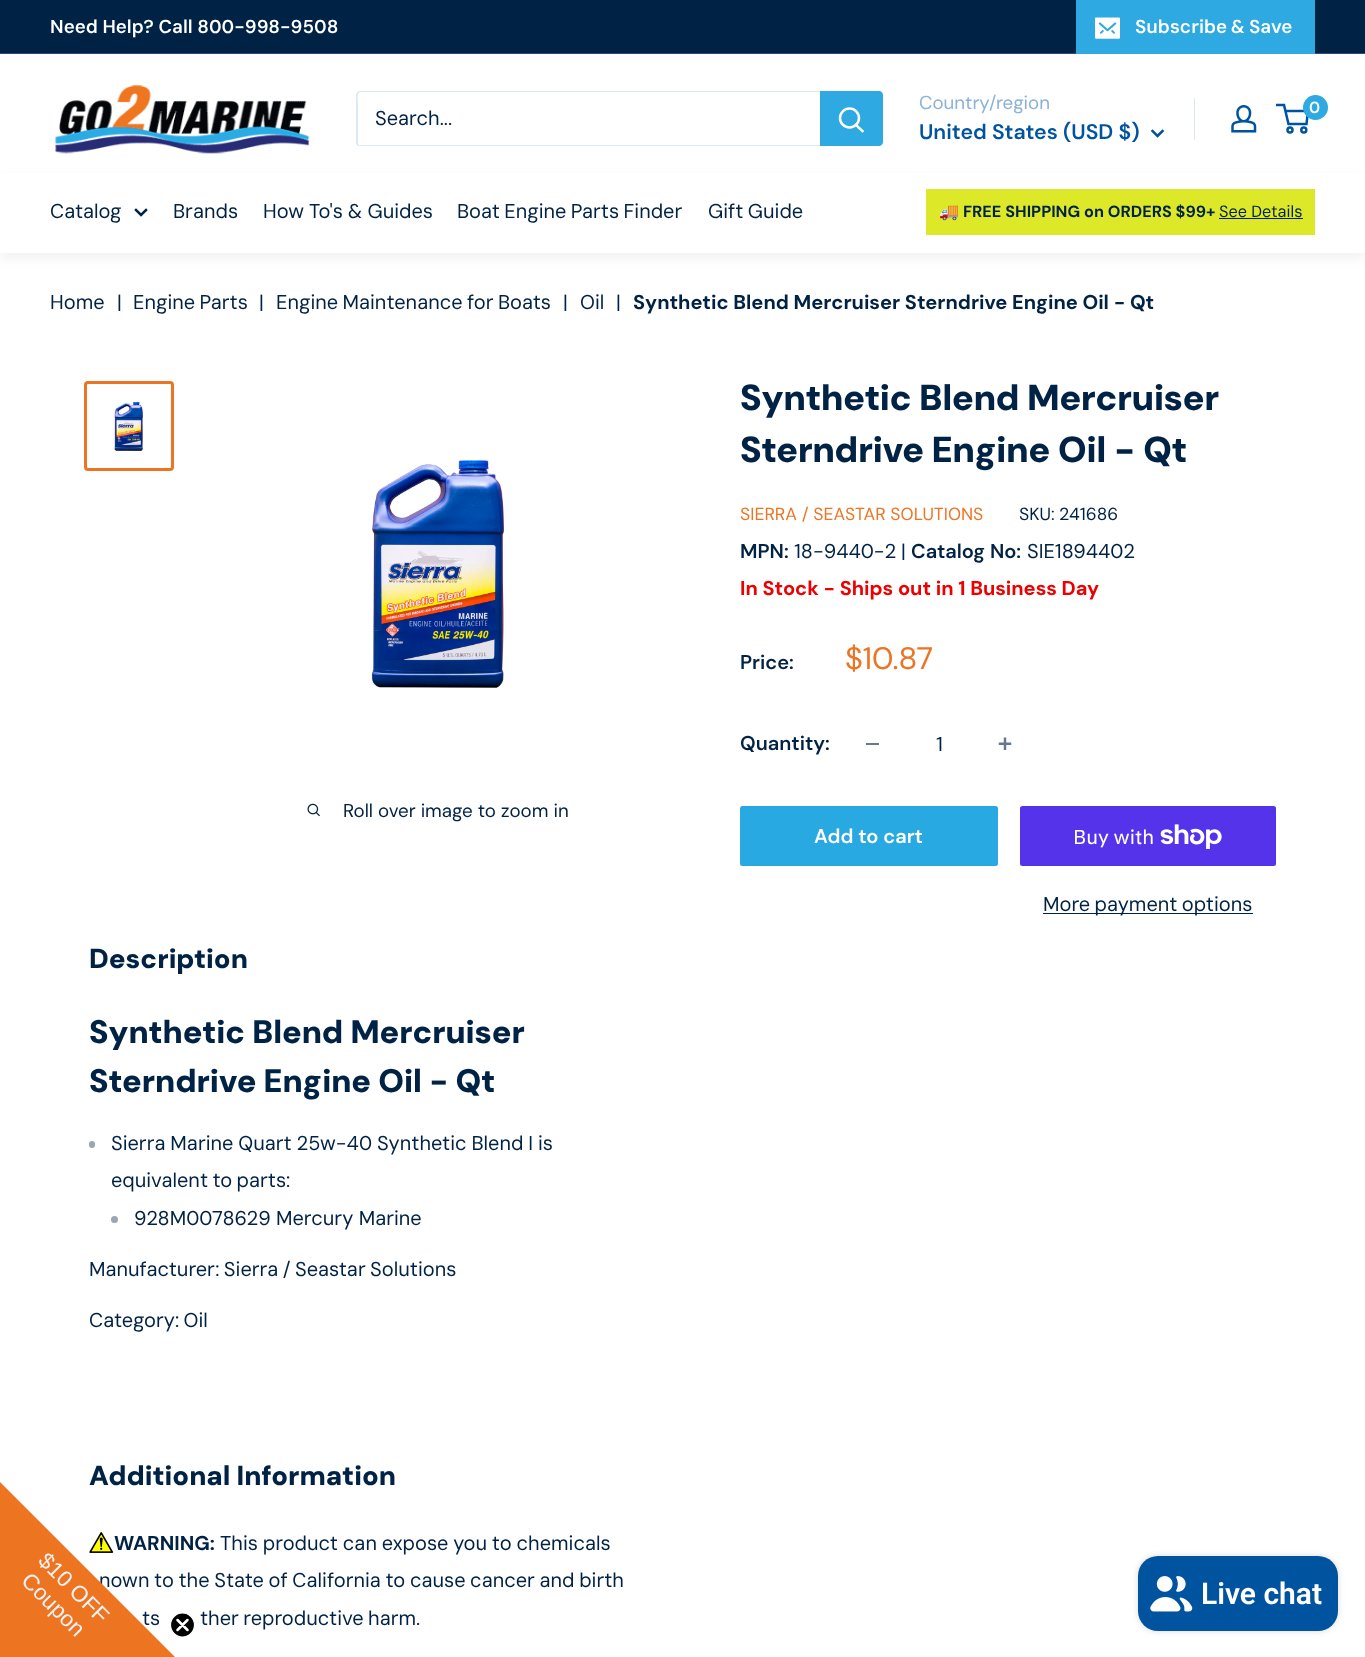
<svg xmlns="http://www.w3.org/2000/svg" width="1365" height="1657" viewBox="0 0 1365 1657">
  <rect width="100%" height="100%" fill="rgb(255,255,255)"/>
  <rect x="0" y="0" width="1365" height="53" fill="rgb(0,34,68)"/>
  <rect x="0" y="53" width="1365" height="1" fill="rgb(42,77,112)"/>
  <text x="50" y="33" font-family="DM Sans" font-size="18.75" font-weight="600" fill="rgb(255,255,255)">Need Help? Call 800-998-9508</text>
  <path d="M1076 1V54H1315V52H1076Z" fill="rgb(46,169,225)"/>
  <rect x="1076" y="0" width="239" height="52" fill="rgb(46,169,225)"/>
  <image x="1095" y="17" width="25" height="22" href="pic1.png"/>
  <text x="1135" y="33" word-spacing="-1" font-family="DM Sans" font-size="18.75" font-weight="600" fill="rgb(255,255,255)">Subscribe &amp; Save</text>
  <image x="55" y="85" width="255" height="69" href="pic2.png"/>
  <path d="M357 144C357 145 359 146 360 146H879C881 146 883 144 883 142V95C883 93 882 92 880 91L881 94V141C881 143 880 145 878 145H359Z" fill="rgb(220,232,243)"/>
  <path d="M361 92H880L882 93C882 92 880 91 879 91H360C358 91 356 93 356 95V142C356 144 357 145 358 146V104C358 103 356 92 361 92Z" fill="rgba(139,178,215,0.3)"/>
  <text x="375" y="125" font-family="DM Sans" font-size="20" fill="rgb(0,34,68)">Search...</text>
  <path d="M820 91H879C881 91 883 93 883 95V142C883 144 881 146 879 146H820Z" fill="rgb(46,169,225)"/>
  <path d="M862.5 131L856 125" fill="none" stroke="rgb(255,255,255)" stroke-width="2.5" stroke-linecap="square"/>
  <circle cx="849.5" cy="118" r="9.5" fill="none" stroke="rgb(255,255,255)" stroke-width="2.5"/>
  <text x="919" y="109" font-family="'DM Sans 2'" font-size="18.75" fill="rgb(139,178,215)">Country/region</text>
  <text x="919" y="139" font-family="'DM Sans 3'" font-size="21.25" font-weight="600" fill="rgb(0,83,159)">United States (USD $)</text>
  <path d="M1162.5 131L1157.5 136L1152.5 131" fill="none" stroke="rgb(0,83,159)" stroke-width="2.5" stroke-linecap="square"/>
  <rect x="1194" y="98" width="1" height="42" fill="rgb(220,232,243)"/>
  <image x="1231" y="105" width="26" height="28" href="pic3.png"/>
  <circle cx="1290" cy="130" r="2.5" fill="none" stroke="rgb(0,83,159)" stroke-width="2.5"/>
  <circle cx="1303.8" cy="130" r="2.5" fill="none" stroke="rgb(0,83,159)" stroke-width="2.5"/>
  <path d="M1285.5 111H1308L1306.5 124H1288.5L1284 105H1276" fill="none" stroke="rgb(0,83,159)" stroke-width="2.5"/>
  <circle cx="1315.5" cy="107.5" r="12.5" fill="rgb(46,169,225)"/>
  <text x="1309" y="113" font-family="'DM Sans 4'" font-size="16" font-weight="600" fill="rgb(255,255,255)">0</text>
  <rect x="0" y="178" width="1365" height="81" fill="rgba(0,0,0,0.05)" filter="blur(6px)"/>
  <rect x="0" y="173" width="1365" height="80" fill="rgb(255,255,255)"/>
  <text x="50" y="218" font-family="DM Sans" font-size="20" fill="rgb(0,34,68)">Catalog</text>
  <path d="M146 210L141 215L136 210" fill="none" stroke="rgb(0,34,68)" stroke-width="2.5" stroke-linecap="square"/>
  <g font-family="DM Sans" font-size="20" fill="rgb(0,34,68)">
    <text x="173" y="218">Brands</text>
    <text x="263" y="218" word-spacing="-0.5">How To's &amp; Guides</text>
    <text x="457" y="218" word-spacing="-1">Boat Engine Parts Finder</text>
    <text x="708" y="218" word-spacing="-1">Gift Guide</text>
  </g>
  <rect x="926" y="189" width="389" height="46" fill="rgb(221,232,40)"/>
  <text x="939" y="217" font-family="Noto Color Emoji" font-size="16.25" font-weight="bold" fill="rgb(0,34,68)">🚚</text>
  <text x="963" y="217" font-family="'DM Sans 2'" font-size="16.25" font-weight="bold" fill="rgb(0,34,68)">FREE SHIPPING on ORDERS $99+</text>
  <text x="1219" y="217" font-family="DM Sans" font-size="16.25" fill="rgb(0,34,68)">See Details</text>
  <rect x="1219" y="218" width="84" height="1" fill="rgb(0,34,68)"/>
  <g font-family="DM Sans" font-size="20" fill="rgb(0,34,68)">
    <text x="50" y="309">Home</text>
    <text x="117" y="309">|</text>
    <text x="133" y="309" word-spacing="-1">Engine Parts</text>
    <text x="259" y="309">|</text>
    <text x="276" y="309" word-spacing="-1">Engine Maintenance for Boats</text>
    <text x="563" y="309">|</text>
    <text x="580" y="309">Oil</text>
    <text x="616" y="309">|</text>
  </g>
  <text x="633" y="309" font-family="DM Sans" font-size="20" font-weight="bold" fill="rgb(0,34,68)">Synthetic Blend Mercruiser Sterndrive Engine Oil - Qt</text>
  <rect x="85.5" y="382.5" width="87" height="87" rx="2.5" fill="none" stroke="rgb(236,117,36)" stroke-width="3"/>
  <image x="113" y="401" width="30" height="52" href="pic4.png"/>
  <image x="371" y="459" width="133" height="229" href="pic5.png"/>
  <image x="307" y="803" width="13" height="14" href="pic6.png"/>
  <text x="343" y="817" font-family="'DM Sans 2'" font-size="18.75" fill="rgb(0,34,68)">Roll over image to zoom in</text>
  <g font-family="DM Sans" font-size="36.25" font-weight="900" fill="rgb(0,34,68)">
    <text>
      <tspan x="740" y="410">Synthetic Blend Mercruiser</tspan>
      <tspan x="740" y="462">Sterndrive Engine Oil - Qt</tspan>
    </text>
  </g>
  <text x="740" y="520" font-family="DM Sans" font-size="17.5" fill="rgb(236,117,36)">SIERRA / SEASTAR SOLUTIONS</text>
  <g font-family="DM Sans" font-size="17.5" fill="rgb(0,34,68)">
    <text x="1019" y="520">SKU:</text>
    <text x="1059" y="520">241686</text>
  </g>
  <text x="740" y="558" font-family="'DM Sans 2'" font-size="20" font-weight="600" fill="rgb(0,34,68)">MPN:</text>
  <g font-family="DM Sans" font-size="20" fill="rgb(0,34,68)">
    <text x="794" y="558">18-9440-2</text>
    <text x="901" y="558">|</text>
  </g>
  <text x="911" y="558" font-family="'DM Sans 2'" font-size="20" font-weight="600" fill="rgb(0,34,68)">Catalog No:</text>
  <text x="1027" y="558" font-family="DM Sans" font-size="20" fill="rgb(0,34,68)">SIE1894402</text>
  <text x="740" y="595" font-family="DM Sans" font-size="20" font-weight="bold" fill="rgb(238,0,0)">In Stock - Ships out in 1 Business Day</text>
  <text x="740" y="669" font-family="'DM Sans 2'" font-size="20" font-weight="600" fill="rgb(0,34,68)">Price:</text>
  <text x="845" y="669" font-family="'DM Sans 3'" font-size="31" fill="rgb(236,117,36)">$10.87</text>
  <text x="740" y="750" font-family="'DM Sans 2'" font-size="20" font-weight="600" fill="rgb(0,34,68)">Quantity:</text>
  <rect x="866" y="743" width="13" height="2" fill="rgb(102,122,143)"/>
  <text x="936" y="751" font-family="DM Sans" font-size="20" fill="rgb(0,34,68)">1</text>
  <image x="998" y="737" width="14" height="13" href="pic7.png"/>
  <rect x="740" y="806" width="258" height="60" rx="2.5" fill="rgb(41,169,225)"/>
  <text x="814" y="843" font-family="'DM Sans 2'" font-size="20" font-weight="600" fill="rgb(255,255,255)">Add to cart</text>
  <rect x="1020" y="806" width="256" height="60" rx="2.5" fill="rgb(84,51,235)"/>
  <text x="1073" y="844" font-family="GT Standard" font-size="20" fill="rgb(255,255,255)">Buy with</text>
  <image x="1160" y="824" width="62" height="25" href="pic8.png"/>
  <rect x="1043" y="913" width="210" height="1" fill="rgb(0,34,68)"/>
  <text x="1043" y="911" word-spacing="-1" font-family="DM Sans" font-size="20" fill="rgb(0,34,68)">More payment options</text>
  <text x="89" y="968" font-family="'DM Sans 2'" font-size="27.5" font-weight="900" fill="rgb(0,34,68)">Description</text>
  <g font-family="'DM Sans 3'" font-size="32.5" font-weight="900" fill="rgb(0,34,68)">
    <text>
      <tspan x="89" y="1043">Synthetic Blend Mercruiser</tspan>
      <tspan x="89" y="1092">Sterndrive Engine Oil - Qt</tspan>
    </text>
  </g>
  <rect x="89" y="1141" width="6" height="7" rx="3" fill="rgb(153,167,180)"/>
  <g font-family="DM Sans" font-size="20" fill="rgb(0,34,68)">
    <text>
      <tspan x="111" y="1150" word-spacing="-0.5">Sierra Marine Quart 25w-40 Synthetic Blend I is</tspan>
      <tspan x="111" y="1187" word-spacing="-1">equivalent to parts:</tspan>
    </text>
  </g>
  <circle cx="114.5" cy="1219.5" r="3.5" fill="rgb(153,167,180)"/>
  <g font-family="DM Sans" font-size="20" fill="rgb(0,34,68)">
    <text x="134" y="1225">928M0078629 Mercury Marine</text>
    <text x="89" y="1276" word-spacing="-1">Manufacturer: Sierra / Seastar Solutions</text>
    <text x="89" y="1327" word-spacing="-1">Category: Oil</text>
  </g>
  <text x="89" y="1485" font-family="'DM Sans 2'" font-size="27.5" font-weight="900" fill="rgb(0,34,68)">Additional Information</text>
  <image x="89" y="1532" width="25" height="21" href="pic9.png"/>
  <text x="114" y="1550" font-family="DM Sans" font-size="20" font-weight="bold" fill="rgb(0,34,68)">WARNING:</text>
  <g font-family="DM Sans" font-size="20" fill="rgb(0,34,68)">
    <text x="220" y="1550" word-spacing="-0.5">This product can expose you to chemicals</text>
    <text x="99" y="1587" word-spacing="-0.75">nown to the State of California to cause cancer and birth</text>
    <text x="142" y="1625" word-spacing="-1">ts</text>
    <text x="200" y="1625" word-spacing="-1">ther reproductive harm.</text>
  </g>
  <path d="M0 1482L175 1657L0 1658Z" fill="rgb(237,117,34)"/>
  <g font-family="Liberation Sans" font-size="22.5" fill="rgb(243,241,241)">
    <text x="37" y="1562" transform="rotate(45 37 1562)">$10</text>
    <text x="68" y="1593" transform="rotate(45 68 1593)">OFF</text>
    <text x="20" y="1582" transform="rotate(45 20 1582)">Coupon</text>
  </g>
  <circle cx="182.5" cy="1625" r="12" fill="rgb(0,0,0)" stroke="rgb(255,255,255)" stroke-width="1.2"/>
  <path d="M177.5 1620L187.5 1630M177.5 1630L187.5 1620Z" fill="none" stroke="rgb(255,255,255)" stroke-width="2.5" stroke-linecap="round" stroke-linejoin="round"/>
  <rect x="1138" y="1556" width="200" height="75" rx="20" fill="rgba(0,0,0,0.15)" filter="blur(3px)"/>
  <rect x="1138" y="1556" width="200" height="75" rx="20" fill="rgb(0,83,159)"/>
  <image x="1150" y="1576" width="43" height="36" href="pic10.png"/>
  <text x="1201" y="1604" font-family="Roboto" font-size="30" font-weight="600" fill="rgb(255,255,255)">Live chat</text>
</svg>
